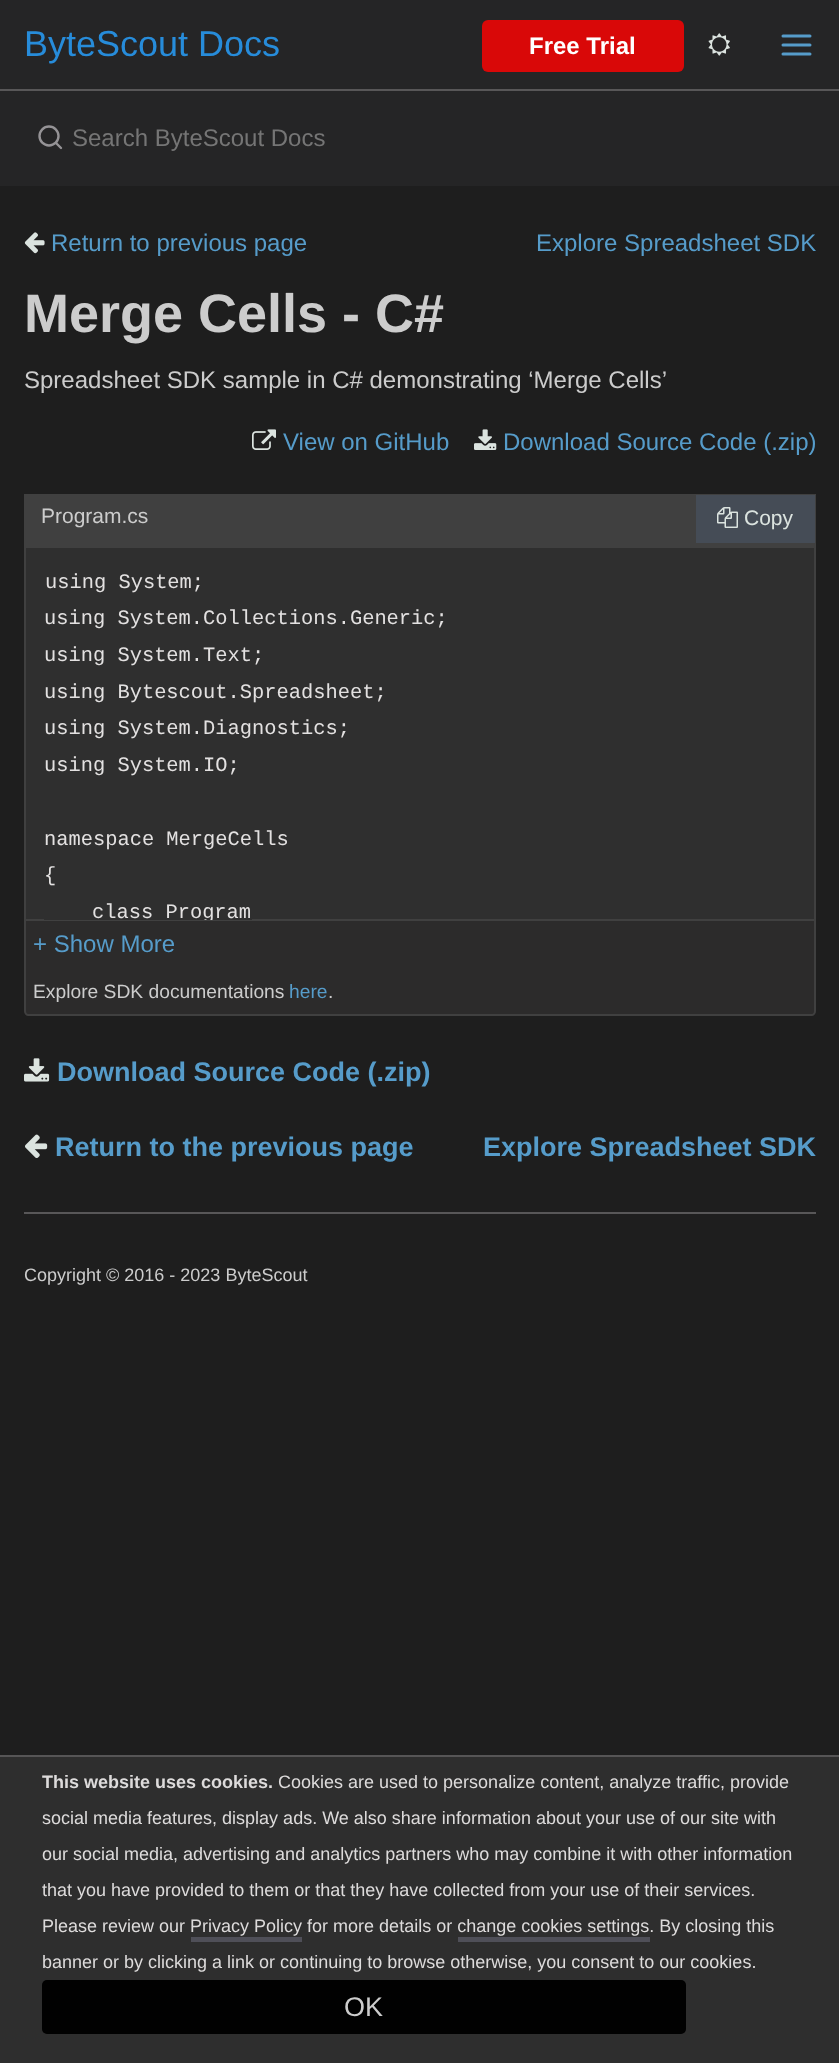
<svg xmlns="http://www.w3.org/2000/svg" width="839" height="2063" viewBox="0 0 839 2063">
  <defs>
    <clipPath id="clip1"><rect x="26" y="548" width="789" height="372"/></clipPath>
  </defs>
  <rect width="100%" height="100%" fill="rgb(30,30,30)"/>
  <rect x="0" y="0" width="839" height="186" fill="rgb(37,37,38)"/>
  <rect x="0" y="89" width="839" height="2" fill="rgb(88,87,88)"/>
  <text x="24" y="56" font-family="Liberation Sans" font-size="36" fill="rgb(39,140,218)">ByteScout Docs</text>
  <rect x="482" y="20" width="202" height="52" rx="6" fill="rgb(217,8,8)"/>
  <text x="529" y="54" font-family="Liberation Sans" font-size="24" font-weight="bold" fill="rgb(255,255,255)">Free Trial</text>
  <image x="708" y="33" width="22" height="23" href="pic1.png"/>
  <path d="M783 45H810M783 36H810M783 54H810" fill="none" stroke="rgb(86,156,202)" stroke-width="3" stroke-linecap="round" stroke-linejoin="round"/>
  <circle cx="49" cy="136" r="9.5" fill="none" stroke="rgb(149,147,150)" stroke-width="2.4"/>
  <path d="M61 148L56 143" fill="none" stroke="rgb(149,147,150)" stroke-width="2.4" stroke-linecap="round" stroke-linejoin="round"/>
  <text x="72" y="146" font-family="Liberation Sans" font-size="24" fill="rgb(117,117,117)">Search ByteScout Docs</text>
  <image x="24" y="232" width="21" height="22" href="pic2.png"/>
  <g font-family="Liberation Sans" font-size="24" fill="rgb(86,156,202)">
    <text x="51" y="251">Return to previous page</text>
    <text x="536" y="251">Explore Spreadsheet SDK</text>
  </g>
  <text x="24" y="332" font-family="Liberation Sans" font-size="54" font-weight="bold" fill="rgb(204,204,204)">Merge Cells - C#</text>
  <text x="24" y="388" font-family="Liberation Sans" font-size="24" fill="rgb(204,204,204)">Spreadsheet SDK sample in C# demonstrating ‘Merge Cells’</text>
  <image x="252" y="429" width="24" height="21" href="pic3.png"/>
  <text x="283" y="450" font-family="Liberation Sans" font-size="24" fill="rgb(86,156,202)">View on GitHub</text>
  <image x="474" y="429" width="23" height="21" href="pic4.png"/>
  <text x="503" y="450" font-family="Liberation Sans" font-size="24" fill="rgb(86,156,202)">Download Source Code (.zip)</text>
  <rect x="24" y="494" width="792" height="52" fill="rgb(64,64,64)"/>
  <text x="41" y="523" font-family="Liberation Sans" font-size="21" fill="rgb(204,204,204)">Program.cs</text>
  <rect x="696" y="495" width="119" height="48" fill="rgb(69,76,86)"/>
  <image x="717" y="507" width="21" height="21" href="pic5.png"/>
  <text x="744" y="525" font-family="Liberation Sans" font-size="21" fill="rgb(219,227,223)">Copy</text>
  <rect x="25" y="547" width="790" height="373" fill="rgb(47,47,47)" stroke="rgb(64,64,64)" stroke-width="2"/>
  <g font-family="Liberation Mono" font-size="20.4" fill="rgb(227,225,225)">
    <text x="45" y="588">using System;</text>
    <text>
      <tspan x="44" y="624">using System.Collections.Generic;</tspan>
      <tspan x="44" y="661">using System.Text;</tspan>
      <tspan x="44" y="698">using Bytescout.Spreadsheet;</tspan>
      <tspan x="44" y="734">using System.Diagnostics;</tspan>
      <tspan x="44" y="771">using System.IO;</tspan>
    </text>
    <text>
      <tspan x="44" y="845">namespace MergeCells</tspan>
      <tspan x="44" y="881">{</tspan>
    </text>
  </g>
  <rect x="44" y="919" width="208" height="1" fill="rgb(47,47,47)"/>
  <g clip-path="url(#clip1)">
    <text x="92" y="918" font-family="Liberation Mono" font-size="20.4" fill="rgb(227,225,225)">class Program</text>
  </g>
  <path d="M24 921H816V1011C816 1014 814 1016 811 1016H29C26 1016 24 1014 24 1011Z" fill="rgb(44,43,43)"/>
  <path d="M24 921H816V1011C816 1013 814 1016 812 1016H28C26 1016 24 1013 24 1011ZM26 921H814V1011C814 1013 813 1014 812 1014H28C27 1014 26 1013 26 1011Z" fill="rgb(64,64,64)" fill-rule="evenodd"/>
  <text x="33" y="952" font-family="Liberation Sans" font-size="24" fill="rgb(86,156,202)">+ Show More</text>
  <text x="33" y="998" font-family="Liberation Sans" font-size="19.25" fill="rgb(204,204,204)">Explore SDK documentations</text>
  <text x="289" y="998" font-family="Liberation Sans" font-size="19.25" fill="rgb(86,156,202)">here</text>
  <text x="328" y="998" font-family="Liberation Sans" font-size="19.25" fill="rgb(204,204,204)">.</text>
  <image x="24" y="1058" width="26" height="24" href="pic6.png"/>
  <text x="57" y="1081" font-family="Liberation Sans" font-size="27" font-weight="bold" fill="rgb(86,156,202)">Download Source Code (.zip)</text>
  <image x="25" y="1134" width="23" height="24" href="pic7.png"/>
  <g font-family="Liberation Sans" font-size="27" font-weight="bold" fill="rgb(86,156,202)">
    <text x="55" y="1156">Return to the previous page</text>
    <text x="483" y="1156">Explore Spreadsheet SDK</text>
  </g>
  <rect x="24" y="1212" width="792" height="2" fill="rgb(88,87,88)"/>
  <text x="24" y="1281" font-family="Liberation Sans" font-size="18" fill="rgb(204,204,204)">Copyright © 2016 - 2023 ByteScout</text>
  <rect x="0" y="1757" width="839" height="306" fill="rgb(46,46,46)"/>
  <rect x="0" y="1755" width="839" height="2" fill="rgb(86,85,86)"/>
  <text x="42" y="1788" font-family="Liberation Sans" font-size="18" font-weight="bold" fill="rgb(221,219,219)">This website uses cookies.</text>
  <g font-family="Liberation Sans" font-size="18" fill="rgb(221,219,219)">
    <text x="278" y="1788">Cookies are used to personalize content, analyze traffic, provide</text>
    <text x="42" y="1824">social media features, display ads. We also share information about your use of our site with</text>
    <text x="42" y="1860">our social media, advertising and analytics partners who may combine it with other information</text>
    <text x="42" y="1896">that you have provided to them or that they have collected from your use of their services.</text>
    <text x="42" y="1932">Please review our Privacy Policy for more details or change cookies settings. By closing this</text>
  </g>
  <rect x="191" y="1937" width="111" height="5" fill="rgb(79,79,88)"/>
  <rect x="458" y="1937" width="192" height="5" fill="rgb(79,79,88)"/>
  <text x="42" y="1968" font-family="Liberation Sans" font-size="18" fill="rgb(221,219,219)">banner or by clicking a link or continuing to browse otherwise, you consent to our cookies.</text>
  <rect x="42" y="1980" width="644" height="54" rx="5" fill="rgb(1,1,1)"/>
  <text x="344" y="2016" font-family="Liberation Sans" font-size="27" fill="rgb(204,204,204)">OK</text>
</svg>
